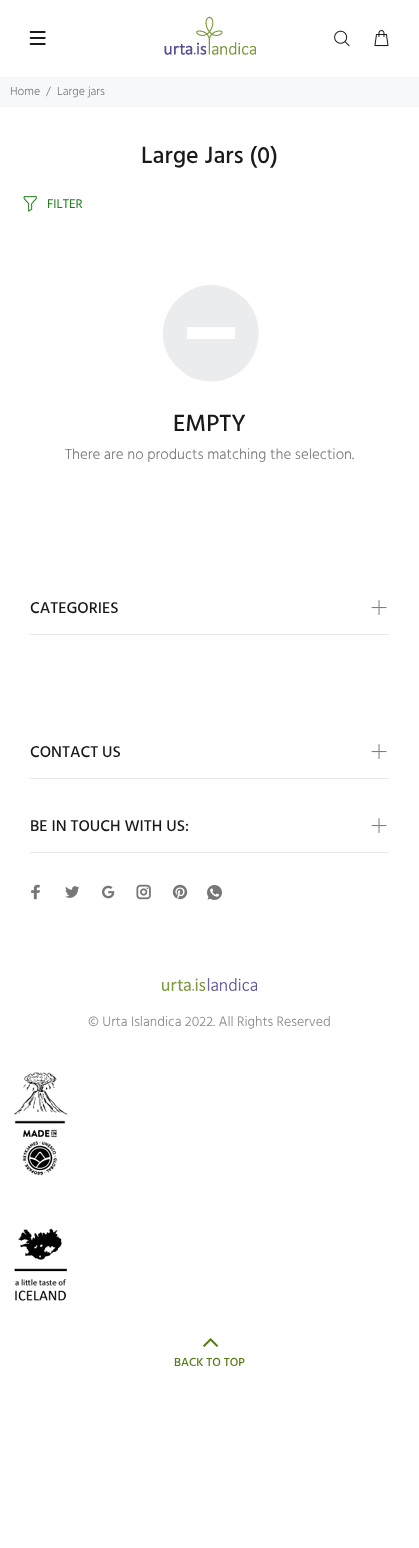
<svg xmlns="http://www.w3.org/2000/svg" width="419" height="1548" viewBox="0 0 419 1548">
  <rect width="100%" height="100%" fill="rgb(255,255,255)"/>
  <image x="29" y="31" width="17" height="14" href="pic1.png"/>
  <image x="164" y="16" width="92" height="39" href="pic2.png"/>
  <image x="334" y="30" width="16" height="17" href="pic3.png"/>
  <image x="374" y="30" width="15" height="17" href="pic4.png"/>
  <rect x="0" y="77" width="419" height="30" fill="rgb(247,248,250)"/>
  <g font-family="Hind" font-size="12" font-weight="300" fill="rgb(119,119,119)">
    <text x="10" y="95">Home</text>
    <text x="46" y="95">/</text>
    <text x="57" y="95">Large jars</text>
  </g>
  <text x="141" y="163" font-family="Hind" font-size="24" font-weight="500" fill="rgb(25,25,25)">Large Jars (0)</text>
  <image x="23" y="196" width="14" height="16" href="pic5.png"/>
  <text x="47" y="208" font-family="Hind" font-size="13" fill="rgb(28,127,27)">FILTER</text>
  <path d="M230 289C273 308 266 372 219 381C210 382 201 381 192 378C183 373 175 366 169 357C147 318 188 271 230 289ZM235 327H187V339H235Z" fill="rgb(235,236,238)"/>
  <text x="173" y="431" font-family="Hind" font-size="24" font-weight="500" fill="rgb(25,25,25)">EMPTY</text>
  <text x="65" y="459" font-family="Hind" font-size="15" font-weight="300" fill="rgb(119,119,119)">There are no products matching the selection.</text>
  <rect x="30" y="634" width="359" height="1" fill="rgb(233,231,231)"/>
  <text x="30" y="613" font-family="Hind" font-size="16" font-weight="500" fill="rgb(25,25,25)">CATEGORIES</text>
  <image x="371" y="600" width="16" height="15" href="pic6.png"/>
  <rect x="30" y="778" width="359" height="1" fill="rgb(233,231,231)"/>
  <text x="30" y="757" font-family="Hind" font-size="16" font-weight="500" fill="rgb(25,25,25)">CONTACT US</text>
  <image x="371" y="744" width="16" height="15" href="pic6.png"/>
  <rect x="30" y="852" width="359" height="1" fill="rgb(233,231,231)"/>
  <text x="30" y="831" font-family="Hind" font-size="16" font-weight="500" fill="rgb(25,25,25)">BE IN TOUCH WITH US:</text>
  <image x="371" y="818" width="16" height="15" href="pic6.png"/>
  <image x="31" y="884" width="10" height="16" href="pic7.png"/>
  <image x="65" y="886" width="15" height="12" href="pic8.png"/>
  <image x="102" y="885" width="13" height="14" href="pic9.png"/>
  <image x="136" y="884" width="15" height="16" href="pic10.png"/>
  <image x="172" y="884" width="16" height="16" href="pic11.png"/>
  <image x="207" y="885" width="15" height="15" href="pic12.png"/>
  <image x="162" y="978" width="95" height="13" href="pic13.png"/>
  <text x="88" y="1026" font-family="Hind" font-size="14" font-weight="300" fill="rgb(136,136,136)">© Urta Islandica 2022. All Rights Reserved</text>
  <image x="14" y="1072" width="54" height="104" href="pic14.png"/>
  <image x="14" y="1228" width="53" height="73" href="pic15.png"/>
  <image x="203" y="1338" width="16" height="9" href="pic16.png"/>
  <text x="174" y="1366" font-family="Hind" font-size="12" font-weight="500" fill="rgb(85,124,24)">BACK TO TOP</text>
</svg>
